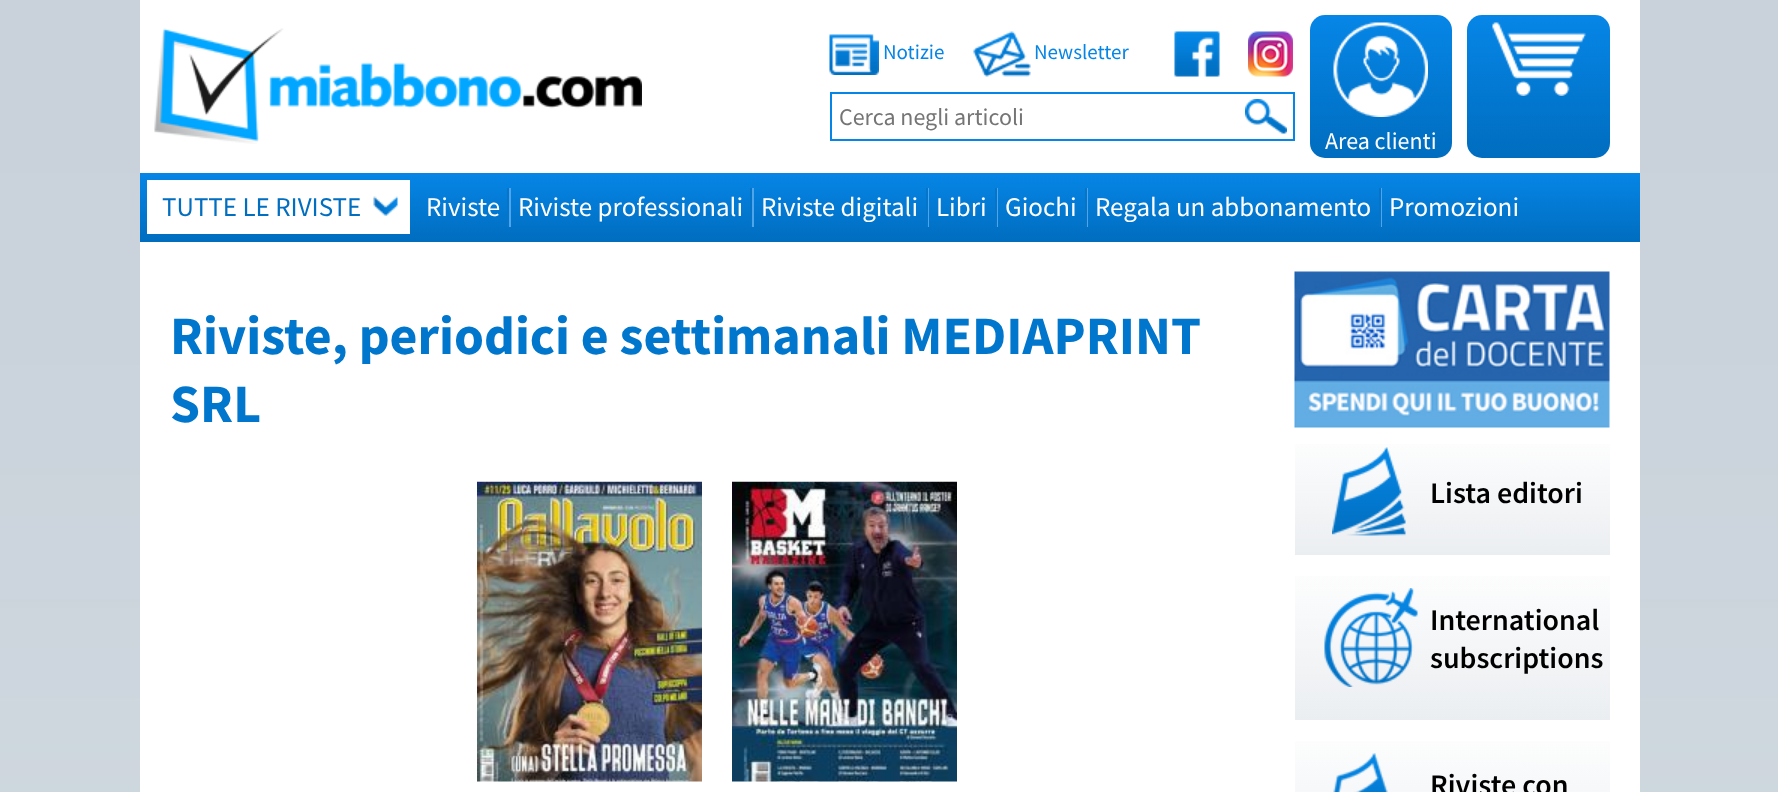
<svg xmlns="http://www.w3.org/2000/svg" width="1778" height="792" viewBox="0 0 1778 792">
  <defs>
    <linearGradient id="g1" gradientUnits="userSpaceOnUse" x1="1538" y1="15" x2="1538" y2="158"><stop offset="0" stop-color="rgb(6,134,231)"/><stop offset="1" stop-color="rgb(0,109,191)"/></linearGradient>
    <linearGradient id="g2" gradientUnits="userSpaceOnUse" x1="1381" y1="15" x2="1381" y2="158"><stop offset="0" stop-color="rgb(6,134,231)"/><stop offset="1" stop-color="rgb(0,109,191)"/></linearGradient>
    <linearGradient id="g3" gradientUnits="userSpaceOnUse" x1="890" y1="172" x2="890" y2="242"><stop offset="0" stop-color="rgb(6,134,231)"/><stop offset="1" stop-color="rgb(0,109,191)"/></linearGradient>
    <linearGradient id="g4" gradientUnits="userSpaceOnUse" x1="1452" y1="428" x2="1452" y2="555"><stop offset="0" stop-color="rgb(255,255,255)"/><stop offset="1" stop-color="rgb(235,238,241)"/></linearGradient>
    <linearGradient id="g5" gradientUnits="userSpaceOnUse" x1="1452" y1="555" x2="1452" y2="720"><stop offset="0" stop-color="rgb(255,255,255)"/><stop offset="1" stop-color="rgb(235,238,241)"/></linearGradient>
    <linearGradient id="g6" gradientUnits="userSpaceOnUse" x1="1452" y1="720" x2="1452" y2="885"><stop offset="0" stop-color="rgb(255,255,255)"/><stop offset="1" stop-color="rgb(235,238,241)"/></linearGradient>
  </defs>
  <rect width="100%" height="100%" fill="rgb(255,255,255)"/>
  <image x="0" y="0" width="1778" height="792" href="pic1.png"/>
  <rect x="140" y="0" width="1500" height="792" fill="rgb(255,255,255)"/>
  <image x="154" y="28" width="488" height="116" href="pic2.png"/>
  <image x="829" y="34" width="50" height="41" href="pic3.png"/>
  <text x="883" y="59" font-family="Source Sans Pro" font-size="21" fill="rgb(5,133,230)">Notizie</text>
  <image x="973" y="31" width="58" height="46" href="pic4.png"/>
  <text x="1034" y="59" font-family="Source Sans Pro" font-size="21" fill="rgb(5,133,230)">Newsletter</text>
  <image x="1174" y="31" width="46" height="46" href="pic5.png"/>
  <image x="1248" y="31" width="45" height="46" href="pic6.png"/>
  <rect x="831" y="93" width="463" height="47" fill="none" stroke="rgb(5,133,230)" stroke-width="2"/>
  <text x="839" y="125" font-family="Source Sans Pro" font-size="24" fill="rgb(117,117,117)">Cerca negli articoli</text>
  <image x="1245" y="99" width="42" height="35" href="pic7.png"/>
  <rect x="1467" y="15" width="143" height="143" rx="15" fill="url(#g1)"/>
  <image x="1492" y="22" width="94" height="74" href="pic8.png"/>
  <rect x="1310" y="15" width="142" height="143" rx="15" fill="url(#g2)"/>
  <image x="1333" y="22" width="95" height="95" href="pic9.png"/>
  <text x="1325" y="149" font-family="Source Sans Pro" font-size="24" fill="rgb(255,255,255)">Area clienti</text>
  <rect x="140" y="173" width="1500" height="69" fill="url(#g3)"/>
  <rect x="147" y="180" width="263" height="54" fill="rgb(255,255,255)"/>
  <image x="373" y="196" width="25" height="20" href="pic10.png"/>
  <text x="162" y="216" font-family="Source Sans Pro" font-size="27" fill="rgb(1,110,192)">TUTTE LE RIVISTE</text>
  <text x="426" y="216" font-family="Source Sans Pro" font-size="27" fill="rgb(255,255,255)">Riviste</text>
  <rect x="509" y="188" width="2" height="39" fill="rgb(78,165,234)"/>
  <rect x="507" y="188" width="2" height="39" fill="rgb(5,117,201)"/>
  <text x="518" y="216" font-family="Source Sans Pro" font-size="27" fill="rgb(255,255,255)">Riviste professionali</text>
  <rect x="752" y="188" width="2" height="39" fill="rgb(78,165,234)"/>
  <rect x="750" y="188" width="2" height="39" fill="rgb(5,117,201)"/>
  <text x="761" y="216" font-family="Source Sans Pro" font-size="27" fill="rgb(255,255,255)">Riviste digitali</text>
  <rect x="928" y="188" width="1" height="39" fill="rgb(78,165,234)"/>
  <rect x="926" y="188" width="2" height="39" fill="rgb(5,117,201)"/>
  <text x="936" y="216" font-family="Source Sans Pro" font-size="27" fill="rgb(255,255,255)">Libri</text>
  <rect x="997" y="188" width="1" height="39" fill="rgb(78,165,234)"/>
  <rect x="995" y="188" width="2" height="39" fill="rgb(5,117,201)"/>
  <text x="1005" y="216" font-family="Source Sans Pro" font-size="27" fill="rgb(255,255,255)">Giochi</text>
  <rect x="1087" y="188" width="1" height="39" fill="rgb(78,165,234)"/>
  <rect x="1085" y="188" width="2" height="39" fill="rgb(5,117,201)"/>
  <text x="1095" y="216" font-family="Source Sans Pro" font-size="27" fill="rgb(255,255,255)">Regala un abbonamento</text>
  <rect x="1381" y="188" width="1" height="39" fill="rgb(78,165,234)"/>
  <rect x="1379" y="188" width="2" height="39" fill="rgb(5,117,201)"/>
  <text x="1389" y="216" font-family="Source Sans Pro" font-size="27" fill="rgb(255,255,255)">Promozioni</text>
  <g font-family="Source Sans Pro" font-size="54" font-weight="bold" fill="rgb(0,118,204)">
    <text>
      <tspan x="170" y="354">Riviste, periodici e settimanali MEDIAPRINT</tspan>
      <tspan x="170" y="422">SRL</tspan>
    </text>
  </g>
  <image x="477" y="481" width="225" height="301" href="pic11.png"/>
  <image x="732" y="481" width="225" height="301" href="pic12.png"/>
  <image x="1294" y="271" width="316" height="157" href="pic13.png"/>
  <rect x="1295" y="444" width="315" height="111" fill="url(#g4)"/>
  <image x="1332" y="447" width="74" height="89" href="pic14.png"/>
  <text x="1430" y="503" font-family="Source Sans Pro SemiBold" font-size="30" font-weight="600" fill="rgb(0,0,0)">Lista editori</text>
  <rect x="1295" y="576" width="315" height="144" fill="url(#g5)"/>
  <image x="1324" y="588" width="94" height="99" href="pic15.png"/>
  <g font-family="Source Sans Pro SemiBold" font-size="30" font-weight="600" fill="rgb(0,0,0)">
    <text>
      <tspan x="1430" y="630">International</tspan>
      <tspan x="1430" y="668">subscriptions</tspan>
    </text>
  </g>
  <rect x="1295" y="741" width="315" height="51" fill="url(#g6)"/>
  <image x="1333" y="753" width="55" height="39" href="pic16.png"/>
  <text x="1430" y="795" font-family="Source Sans Pro SemiBold" font-size="30" font-weight="600" fill="rgb(0,0,0)">Riviste con</text>
</svg>
